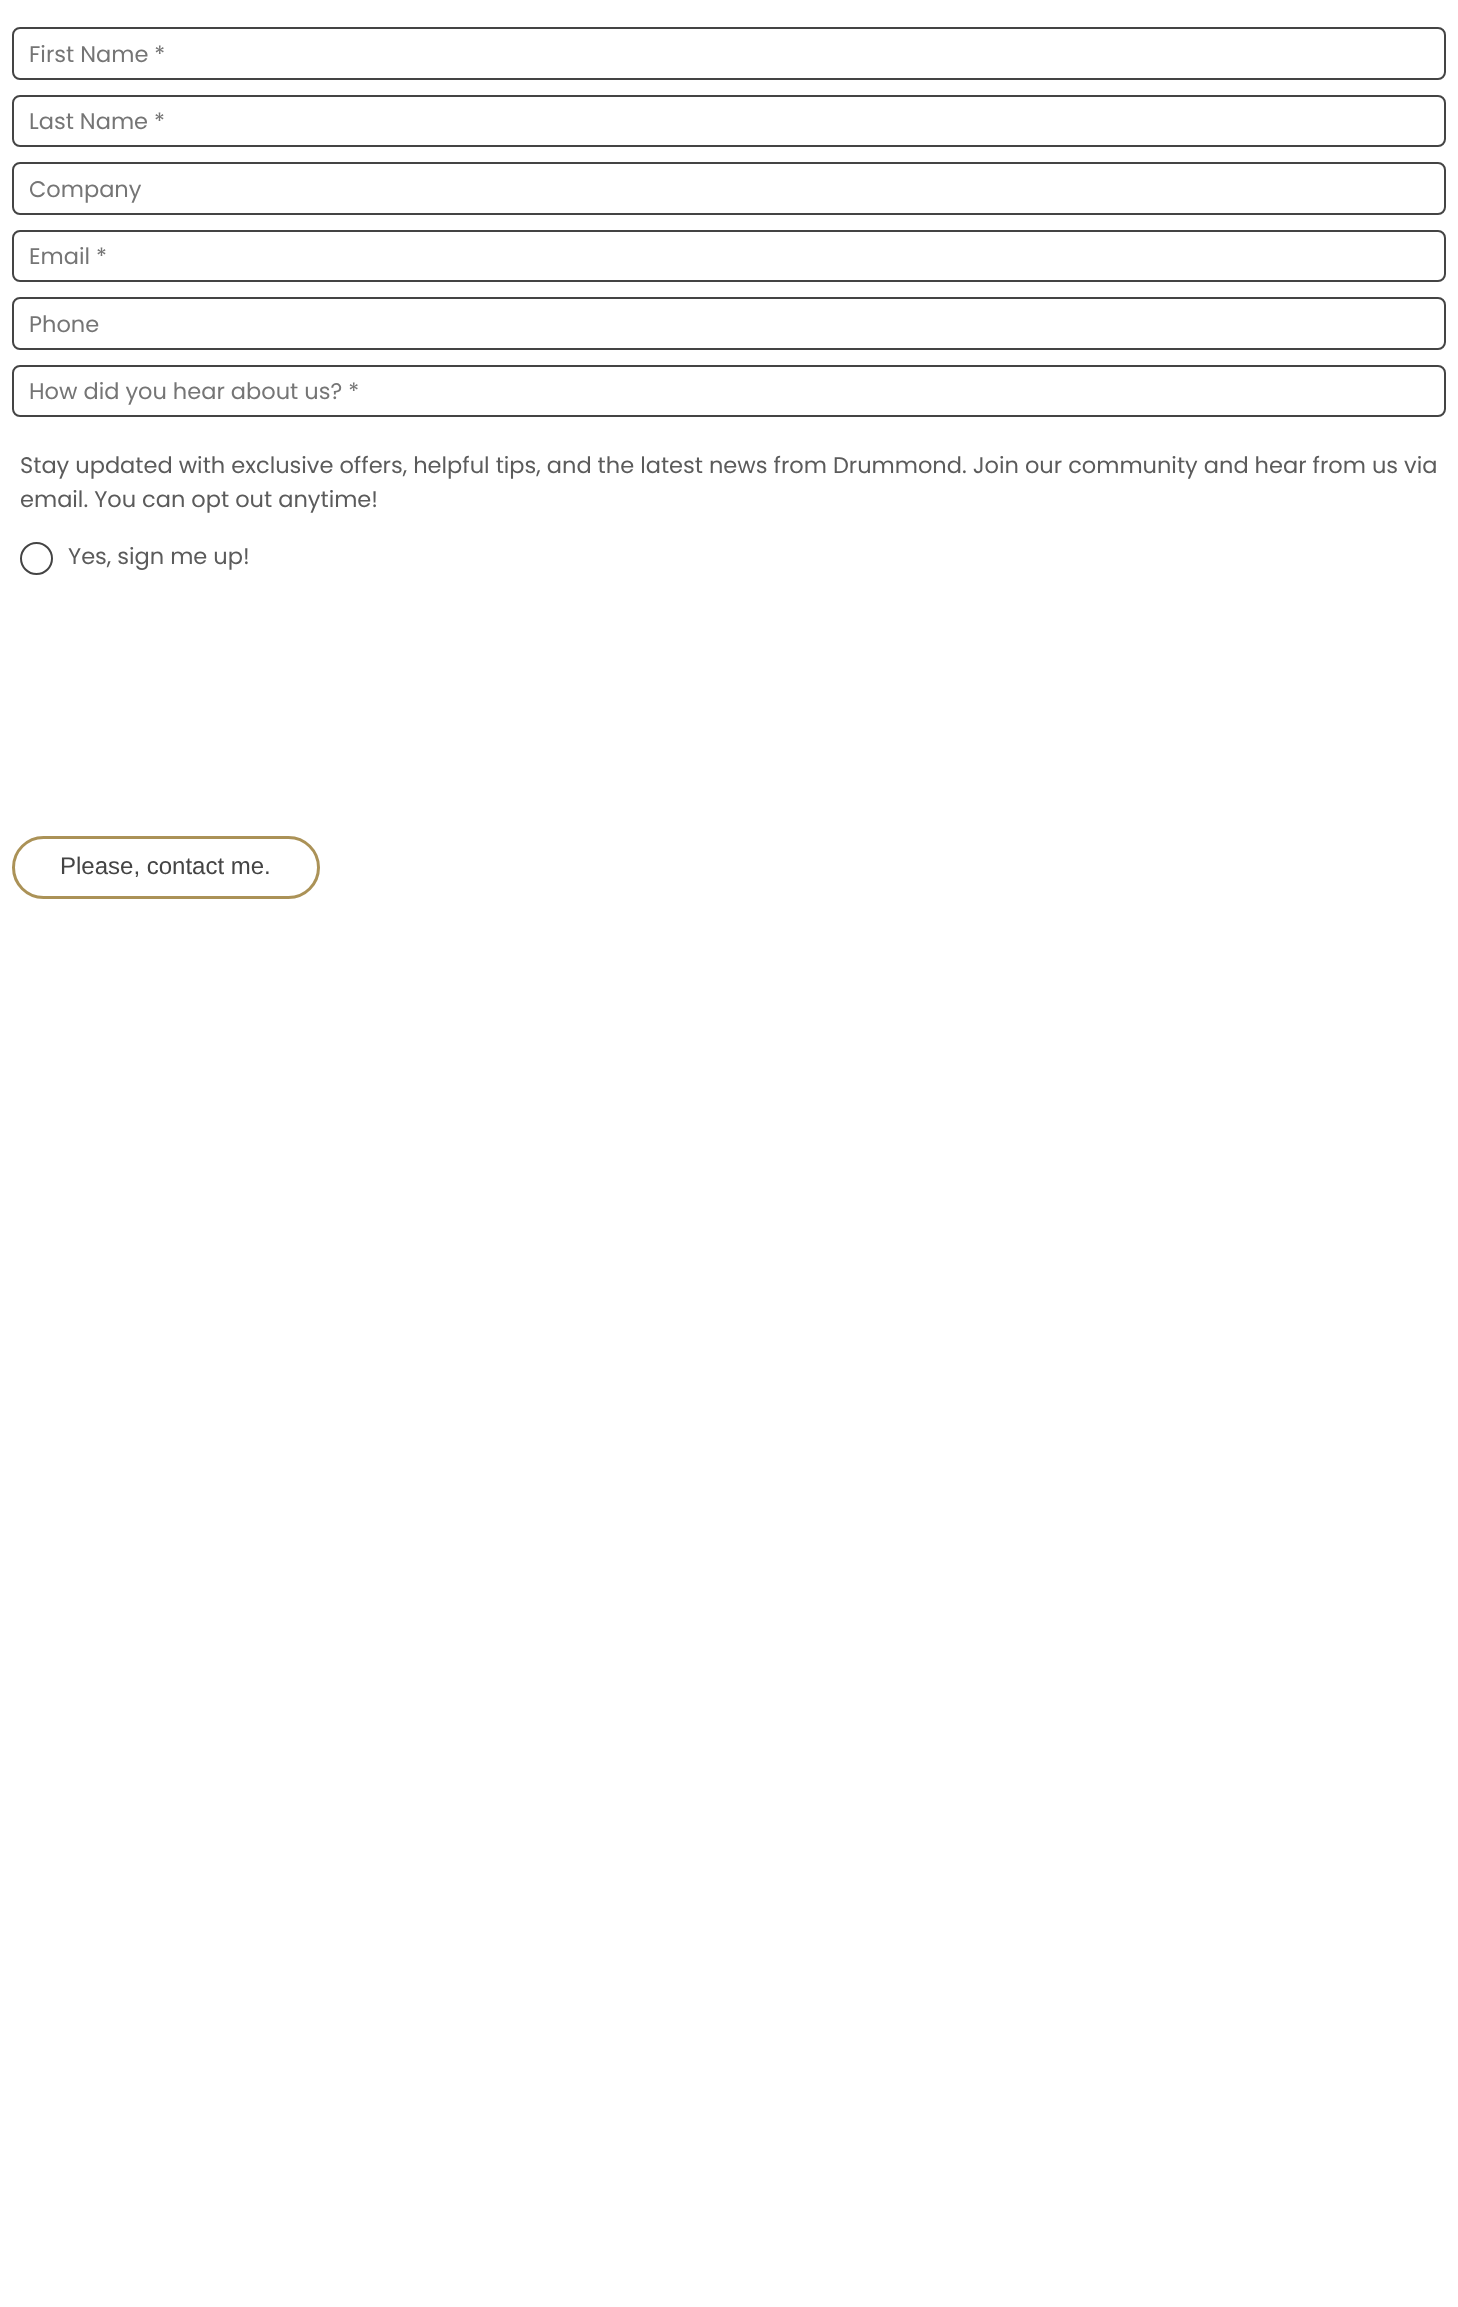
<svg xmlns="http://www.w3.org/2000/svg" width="1458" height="2307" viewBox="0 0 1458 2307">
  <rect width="100%" height="100%" fill="rgb(255,255,255)"/>
  <rect x="13" y="28" width="1432" height="51" rx="7" fill="none" stroke="rgb(68,68,68)" stroke-width="2"/>
  <text x="29" y="62" font-family="Poppins" font-size="22.5" fill="rgb(117,117,117)">First Name *</text>
  <rect x="13" y="96" width="1432" height="50" rx="7" fill="none" stroke="rgb(68,68,68)" stroke-width="2"/>
  <text x="29" y="129" font-family="Poppins" font-size="22.5" fill="rgb(117,117,117)">Last Name *</text>
  <rect x="13" y="163" width="1432" height="51" rx="7" fill="none" stroke="rgb(68,68,68)" stroke-width="2"/>
  <text x="29" y="197" font-family="Poppins" font-size="22.5" fill="rgb(117,117,117)">Company</text>
  <rect x="13" y="231" width="1432" height="50" rx="7" fill="none" stroke="rgb(68,68,68)" stroke-width="2"/>
  <text x="29" y="264" font-family="Poppins" font-size="22.5" fill="rgb(117,117,117)">Email *</text>
  <rect x="13" y="298" width="1432" height="51" rx="7" fill="none" stroke="rgb(68,68,68)" stroke-width="2"/>
  <text x="29" y="332" font-family="Poppins" font-size="22.5" fill="rgb(117,117,117)">Phone</text>
  <rect x="13" y="366" width="1432" height="50" rx="7" fill="none" stroke="rgb(68,68,68)" stroke-width="2"/>
  <text x="29" y="399" font-family="Poppins" font-size="22.5" fill="rgb(117,117,117)">How did you hear about us? *</text>
  <g font-family="Poppins" font-size="22.5" fill="rgb(91,91,91)">
    <text>
      <tspan x="20" y="473">Stay updated with exclusive offers, helpful tips, and the latest news from Drummond. Join our community and hear from us via</tspan>
      <tspan x="20" y="507">email. You can opt out anytime!</tspan>
    </text>
  </g>
  <circle cx="36.5" cy="558.5" r="15.5" fill="none" stroke="rgb(68,68,68)" stroke-width="2"/>
  <text x="68" y="564" font-family="Poppins" font-size="22.5" fill="rgb(91,91,91)">Yes, sign me up!</text>
  <rect x="13.5" y="837.5" width="305" height="60" rx="30" fill="none" stroke="rgb(171,146,87)" stroke-width="3"/>
  <text x="60" y="874" font-family="Liberation Sans" font-size="24" fill="rgb(68,68,68)">Please, contact me.</text>
</svg>
